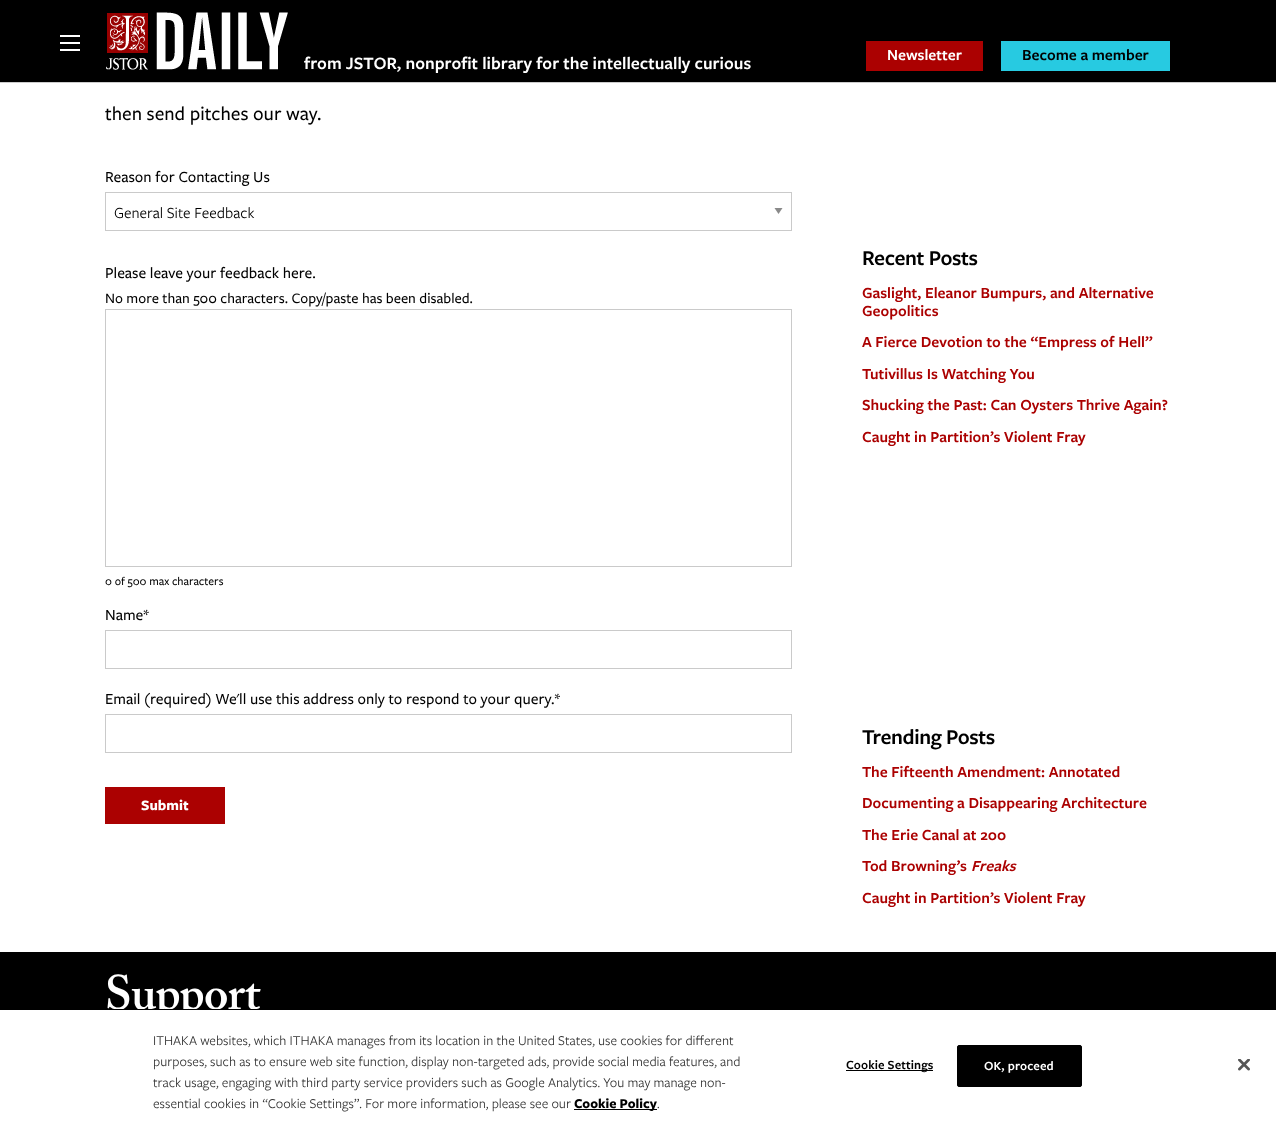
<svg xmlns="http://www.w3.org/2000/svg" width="1276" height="1124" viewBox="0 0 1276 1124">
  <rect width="100%" height="100%" fill="rgb(255,255,255)"/>
  <rect x="0" y="0" width="1276" height="82" fill="rgb(0,0,0)"/>
  <rect x="0" y="82" width="1276" height="1" fill="rgb(204,204,204)"/>
  <rect x="60" y="35" width="20" height="2" fill="rgb(255,255,255)"/>
  <rect x="60" y="42" width="20" height="2" fill="rgb(255,255,255)"/>
  <rect x="60" y="49" width="20" height="2" fill="rgb(255,255,255)"/>
  <image x="106" y="12" width="182" height="58" href="pic1.png"/>
  <text x="304" y="69" font-family="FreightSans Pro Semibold" font-size="18" font-weight="600" fill="rgb(255,255,255)">from JSTOR, nonprofit library for the intellectually curious</text>
  <rect x="866" y="41" width="117" height="30" fill="rgb(171,1,1)"/>
  <text x="887" y="60" font-family="FreightSans Pro Semibold" font-size="16" font-weight="600" fill="rgb(255,255,255)">Newsletter</text>
  <rect x="1001" y="41" width="169" height="30" fill="rgb(39,202,225)"/>
  <text x="1022" y="60" font-family="FreightSans Pro Semibold" font-size="16" font-weight="600" fill="rgb(0,0,0)">Become a member</text>
  <text x="105" y="120" font-family="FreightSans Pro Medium" font-size="20" font-weight="500" fill="rgb(0,0,0)">then send pitches our way.</text>
  <text x="105" y="182" font-family="FreightSans Pro Medium" font-size="16" font-weight="500" fill="rgb(0,0,0)">Reason for Contacting Us</text>
  <path d="M774.5 208H782.5L778.5 214Z" fill="rgb(138,138,138)"/>
  <rect x="105.5" y="192.5" width="686" height="38" fill="none" stroke="rgb(202,202,202)"/>
  <text x="114" y="218" font-family="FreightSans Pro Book" font-size="16" fill="rgb(0,0,0)">General Site Feedback</text>
  <text x="105" y="278" font-family="FreightSans Pro Medium" font-size="16" font-weight="500" fill="rgb(0,0,0)">Please leave your feedback here.</text>
  <text x="105" y="303" font-family="FreightSans Pro Medium" font-size="15" font-weight="500" fill="rgb(0,0,0)">No more than 500 characters. Copy/paste has been disabled.</text>
  <rect x="105.5" y="309.5" width="686" height="257" fill="none" stroke="rgb(202,202,202)"/>
  <text x="105" y="585" font-family="FreightSans Pro Medium" font-size="12" font-weight="500" fill="rgb(0,0,0)">0 of 500 max characters</text>
  <text x="105" y="620" font-family="FreightSans Pro Medium" font-size="16" font-weight="500" fill="rgb(0,0,0)">Name*</text>
  <rect x="105.5" y="630.5" width="686" height="38" fill="none" stroke="rgb(202,202,202)"/>
  <text x="105" y="704" font-family="FreightSans Pro Medium" font-size="16" font-weight="500" fill="rgb(0,0,0)">Email (required) We'll use this address only to respond to your query.*</text>
  <rect x="105.5" y="714.5" width="686" height="38" fill="none" stroke="rgb(202,202,202)"/>
  <rect x="105" y="787" width="120" height="37" fill="rgb(171,1,1)"/>
  <text x="141" y="810" font-family="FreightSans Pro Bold" font-size="15" font-weight="bold" fill="rgb(255,255,255)">Submit</text>
  <text x="862" y="265" font-family="FreightSans Pro Semibold" font-size="22" font-weight="600" letter-spacing="-0.4" fill="rgb(0,0,0)">Recent Posts</text>
  <g font-family="FreightSans Pro Semibold" font-size="16" font-weight="600" fill="rgb(171,1,1)">
    <text>
      <tspan x="862" y="298">Gaslight, Eleanor Bumpurs, and Alternative</tspan>
      <tspan x="862" y="316">Geopolitics</tspan>
      <tspan x="862" y="347">A Fierce Devotion to the “Empress of Hell”</tspan>
    </text>
    <text>
      <tspan x="862" y="379">Tutivillus Is Watching You</tspan>
      <tspan x="862" y="410">Shucking the Past: Can Oysters Thrive Again?</tspan>
    </text>
    <text x="862" y="442">Caught in Partition’s Violent Fray</text>
  </g>
  <text x="862" y="744" font-family="FreightSans Pro Semibold" font-size="22" font-weight="600" letter-spacing="-0.4" fill="rgb(0,0,0)">Trending Posts</text>
  <g font-family="FreightSans Pro Semibold" font-size="16" font-weight="600" fill="rgb(171,1,1)">
    <text>
      <tspan x="862" y="777">The Fifteenth Amendment: Annotated</tspan>
      <tspan x="862" y="808">Documenting a Disappearing Architecture</tspan>
    </text>
    <text>
      <tspan x="862" y="840">The Erie Canal at 200</tspan>
      <tspan x="862" y="871">Tod Browning’s</tspan>
    </text>
  </g>
  <text x="971" y="871" font-family="FreightSans Pro Semibold" font-size="16" font-weight="600" font-style="italic" fill="rgb(171,1,1)">Freaks</text>
  <text x="862" y="903" font-family="FreightSans Pro Semibold" font-size="16" font-weight="600" fill="rgb(171,1,1)">Caught in Partition’s Violent Fray</text>
  <rect x="0" y="952" width="1276" height="57" fill="rgb(0,0,0)"/>
  <text x="105" y="1009" font-family="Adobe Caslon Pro" font-size="48" font-weight="600" letter-spacing="-1" fill="rgb(255,255,255)">Support</text>
  <rect x="0" y="1009" width="1276" height="1" fill="rgb(0,0,0)"/>
  <g font-family="FreightSans Pro Book" font-size="14" fill="rgb(51,51,51)">
    <text>
      <tspan x="153" y="1045">ITHAKA websites, which ITHAKA manages from its location in the United States, use cookies for different</tspan>
      <tspan x="153" y="1066">purposes, such as to ensure web site function, display non-targeted ads, provide social media features, and</tspan>
      <tspan x="153" y="1087">track usage, engaging with third party service providers such as Google Analytics. You may manage non-</tspan>
      <tspan x="153" y="1108">essential cookies in “Cookie Settings”. For more information, please see our</tspan>
    </text>
  </g>
  <rect x="574" y="1109" width="83" height="1" fill="rgb(0,0,0)"/>
  <text x="574" y="1108" font-family="FreightSans Pro Bold" font-size="14" font-weight="bold" fill="rgb(0,0,0)">Cookie Policy</text>
  <text x="657" y="1108" font-family="FreightSans Pro Book" font-size="14" fill="rgb(51,51,51)">.</text>
  <rect x="846" y="1070" width="87" height="1" fill="rgb(0,0,0)"/>
  <text x="846" y="1069" font-family="FreightSans Pro Semibold" font-size="13" font-weight="600" letter-spacing="0.1" fill="rgb(0,0,0)">Cookie Settings</text>
  <rect x="957.5" y="1045.5" width="124" height="41" rx="1.5" fill="rgb(0,0,0)" stroke="rgb(0,0,0)"/>
  <text x="984" y="1070" font-family="FreightSans Pro Semibold" font-size="13" font-weight="600" letter-spacing="0.1" fill="rgb(255,255,255)">OK, proceed</text>
  <image x="1238" y="1059" width="12" height="12" href="pic2.png"/>
</svg>
